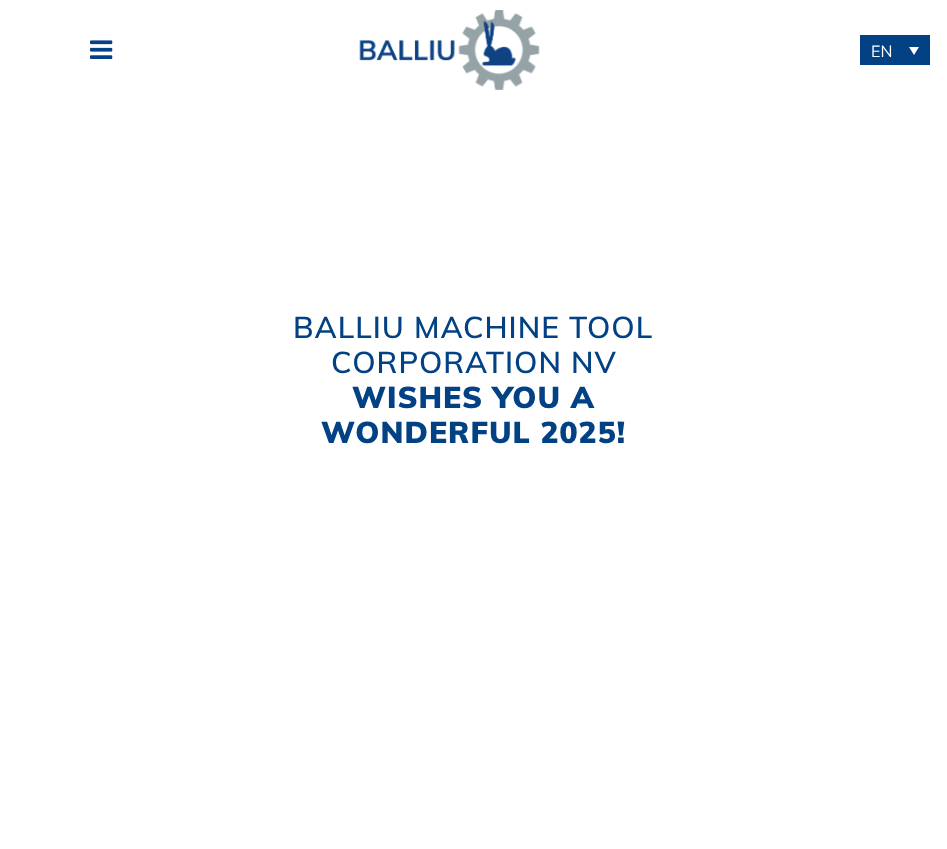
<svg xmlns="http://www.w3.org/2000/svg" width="947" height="849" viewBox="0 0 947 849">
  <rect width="100%" height="100%" fill="rgb(255,255,255)"/>
  <image x="90" y="40" width="23" height="19" href="pic1.png"/>
  <image x="359" y="10" width="181" height="80" href="pic2.png"/>
  <rect x="860" y="35" width="70" height="30" fill="rgb(3,65,133)"/>
  <text x="871" y="57" font-family="Muli" font-size="16" fill="rgb(255,255,255)">EN</text>
  <path d="M909 47H919L914 55Z" fill="rgb(255,255,255)"/>
  <g font-family="Muli" font-size="30" font-weight="600" letter-spacing="1" fill="rgb(3,65,133)">
    <text x="293" y="338">BALLIU MACHINE TOOL</text>
    <text x="331" y="373">CORPORATION NV</text>
  </g>
  <g font-family="Muli" font-size="30" font-weight="900" letter-spacing="1" fill="rgb(3,65,133)">
    <text x="352" y="408">WISHES YOU A</text>
    <text x="321" y="443">WONDERFUL 2025!</text>
  </g>
</svg>
